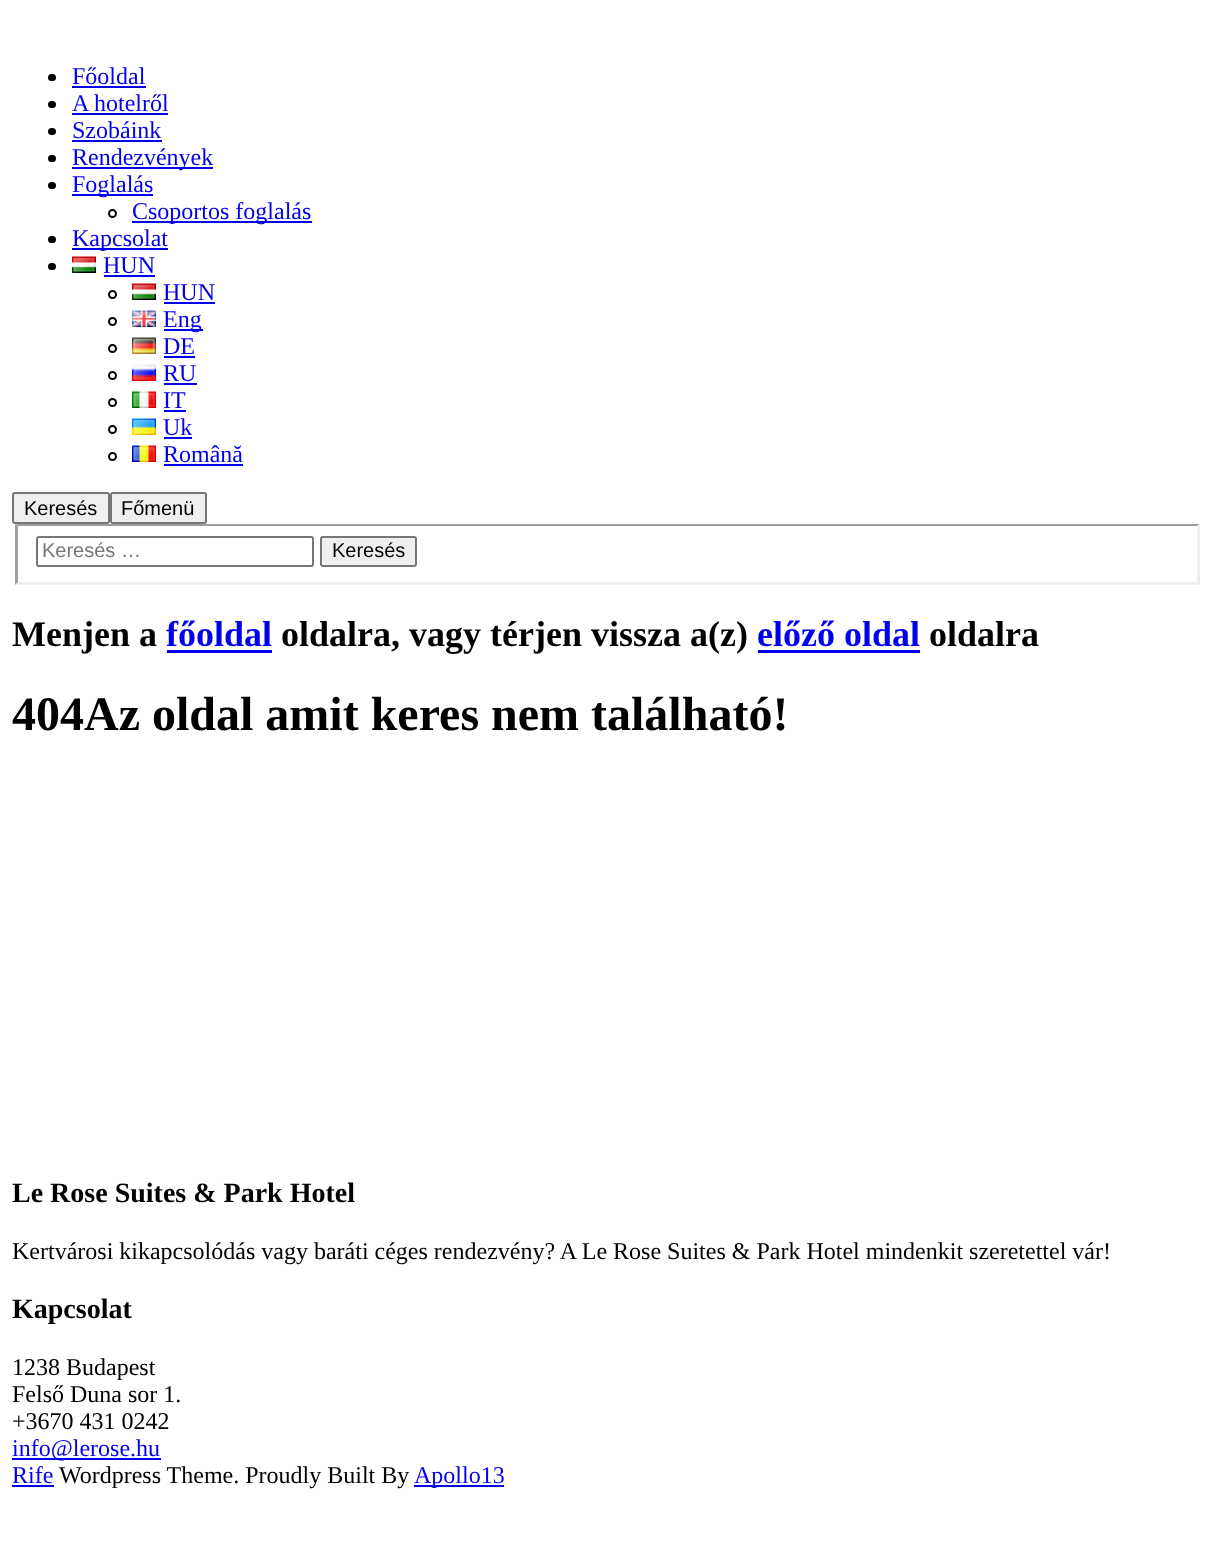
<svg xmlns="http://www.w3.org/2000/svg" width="1215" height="1550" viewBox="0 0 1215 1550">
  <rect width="100%" height="100%" fill="rgb(255,255,255)"/>
  <rect x="48" y="74" width="8" height="7" rx="3.5" fill="rgb(0,0,0)"/>
  <text x="72" y="84" font-family="Liberation Serif" font-size="24" fill="rgb(0,0,238)">Főoldal</text>
  <rect x="72" y="86" width="74" height="2" fill="rgb(0,0,238)"/>
  <rect x="48" y="101" width="8" height="7" rx="3.5" fill="rgb(0,0,0)"/>
  <text x="72" y="111" font-family="Liberation Serif" font-size="24" fill="rgb(0,0,238)">A hotelről</text>
  <rect x="72" y="113" width="96" height="2" fill="rgb(0,0,238)"/>
  <rect x="48" y="128" width="8" height="7" rx="3.5" fill="rgb(0,0,0)"/>
  <text x="72" y="138" font-family="Liberation Serif" font-size="24" fill="rgb(0,0,238)">Szobáink</text>
  <rect x="72" y="140" width="90" height="2" fill="rgb(0,0,238)"/>
  <rect x="48" y="155" width="8" height="7" rx="3.5" fill="rgb(0,0,0)"/>
  <rect x="72" y="167" width="141" height="2" fill="rgb(0,0,238)"/>
  <text x="72" y="165" font-family="Liberation Serif" font-size="24" fill="rgb(0,0,238)">Rendezvények</text>
  <rect x="48" y="182" width="8" height="7" rx="3.5" fill="rgb(0,0,0)"/>
  <rect x="72" y="194" width="81" height="2" fill="rgb(0,0,238)"/>
  <text x="72" y="192" font-family="Liberation Serif" font-size="24" fill="rgb(0,0,238)">Foglalás</text>
  <circle cx="112.5" cy="213.5" r="3.5" fill="none" stroke="rgb(0,0,0)" stroke-width="2"/>
  <rect x="132" y="221" width="180" height="2" fill="rgb(0,0,238)"/>
  <text x="132" y="219" font-family="Liberation Serif" font-size="24" fill="rgb(0,0,238)">Csoportos foglalás</text>
  <rect x="48" y="236" width="8" height="7" rx="3.5" fill="rgb(0,0,0)"/>
  <rect x="72" y="248" width="96" height="2" fill="rgb(0,0,238)"/>
  <text x="72" y="246" font-family="Liberation Serif" font-size="24" fill="rgb(0,0,238)">Kapcsolat</text>
  <rect x="48" y="263" width="8" height="7" rx="3.5" fill="rgb(0,0,0)"/>
  <image x="72" y="256" width="24" height="17" href="pic1.png"/>
  <text x="103" y="273" font-family="Liberation Serif" font-size="24" fill="rgb(0,0,238)">HUN</text>
  <rect x="104" y="275" width="51" height="2" fill="rgb(0,0,238)"/>
  <circle cx="112.5" cy="294.5" r="3.5" fill="none" stroke="rgb(0,0,0)" stroke-width="2"/>
  <image x="132" y="283" width="24" height="17" href="pic1.png"/>
  <text x="163" y="300" font-family="Liberation Serif" font-size="24" fill="rgb(0,0,238)">HUN</text>
  <rect x="164" y="302" width="51" height="2" fill="rgb(0,0,238)"/>
  <circle cx="112.5" cy="321.5" r="3.5" fill="none" stroke="rgb(0,0,0)" stroke-width="2"/>
  <image x="132" y="310" width="24" height="17" href="pic2.png"/>
  <rect x="164" y="329" width="39" height="2" fill="rgb(0,0,238)"/>
  <text x="163" y="327" font-family="Liberation Serif" font-size="24" fill="rgb(0,0,238)">Eng</text>
  <circle cx="112.5" cy="348.5" r="3.5" fill="none" stroke="rgb(0,0,0)" stroke-width="2"/>
  <image x="132" y="337" width="24" height="17" href="pic3.png"/>
  <text x="163" y="354" font-family="Liberation Serif" font-size="24" fill="rgb(0,0,238)">DE</text>
  <rect x="164" y="356" width="31" height="2" fill="rgb(0,0,238)"/>
  <circle cx="112.5" cy="375.5" r="3.5" fill="none" stroke="rgb(0,0,0)" stroke-width="2"/>
  <image x="132" y="364" width="24" height="17" href="pic4.png"/>
  <text x="163" y="381" font-family="Liberation Serif" font-size="24" fill="rgb(0,0,238)">RU</text>
  <rect x="164" y="383" width="33" height="2" fill="rgb(0,0,238)"/>
  <circle cx="112.5" cy="402.5" r="3.5" fill="none" stroke="rgb(0,0,0)" stroke-width="2"/>
  <image x="132" y="391" width="24" height="17" href="pic5.png"/>
  <text x="163" y="408" font-family="Liberation Serif" font-size="24" fill="rgb(0,0,238)">IT</text>
  <rect x="164" y="410" width="22" height="2" fill="rgb(0,0,238)"/>
  <circle cx="112.5" cy="429.5" r="3.5" fill="none" stroke="rgb(0,0,0)" stroke-width="2"/>
  <image x="132" y="418" width="24" height="17" href="pic6.png"/>
  <text x="163" y="435" font-family="Liberation Serif" font-size="24" fill="rgb(0,0,238)">Uk</text>
  <rect x="164" y="437" width="28" height="2" fill="rgb(0,0,238)"/>
  <circle cx="112.5" cy="456.5" r="3.5" fill="none" stroke="rgb(0,0,0)" stroke-width="2"/>
  <image x="132" y="445" width="24" height="17" href="pic7.png"/>
  <text x="163" y="462" font-family="Liberation Serif" font-size="24" fill="rgb(0,0,238)">Română</text>
  <rect x="164" y="464" width="79" height="2" fill="rgb(0,0,238)"/>
  <rect x="13" y="493" width="96" height="30" rx="2" fill="rgb(239,239,239)" stroke="rgb(118,118,118)" stroke-width="2"/>
  <text x="24" y="515" font-family="Liberation Sans" font-size="20" fill="rgb(0,0,0)">Keresés</text>
  <rect x="111" y="493" width="95" height="30" rx="2" fill="rgb(239,239,239)" stroke="rgb(118,118,118)" stroke-width="2"/>
  <text x="121" y="515" font-family="Liberation Sans" font-size="20" fill="rgb(0,0,0)">Főmenü</text>
  <path d="M15 524H1200L1197 526H18Z" fill="rgb(159,159,159)"/>
  <path d="M1200 524V585L1197 582V526Z" fill="rgb(239,239,239)"/>
  <path d="M1200 585H15L18 582H1197Z" fill="rgb(239,239,239)"/>
  <path d="M15 585V524L18 526V582Z" fill="rgb(159,159,159)"/>
  <rect x="37" y="537" width="276" height="29" rx="2" fill="none" stroke="rgb(118,118,118)" stroke-width="2"/>
  <text x="42" y="557" font-family="Liberation Sans" font-size="20" fill="rgb(117,117,117)">Keresés …</text>
  <rect x="321" y="537" width="95" height="29" rx="2" fill="rgb(239,239,239)" stroke="rgb(118,118,118)" stroke-width="2"/>
  <text x="332" y="557" font-family="Liberation Sans" font-size="20" fill="rgb(0,0,0)">Keresés</text>
  <text x="12" y="646" font-family="Liberation Serif" font-size="36" font-weight="bold" fill="rgb(0,0,0)">Menjen a</text>
  <text x="166" y="646" font-family="Liberation Serif" font-size="36" font-weight="bold" fill="rgb(0,0,238)">főoldal</text>
  <rect x="167" y="650" width="105" height="3" fill="rgb(0,0,238)"/>
  <text x="281" y="646" font-family="Liberation Serif" font-size="36" font-weight="bold" fill="rgb(0,0,0)">oldalra, vagy térjen vissza a(z)</text>
  <text x="757" y="646" font-family="Liberation Serif" font-size="36" font-weight="bold" fill="rgb(0,0,238)">előző oldal</text>
  <rect x="758" y="650" width="162" height="3" fill="rgb(0,0,238)"/>
  <text x="929" y="646" font-family="Liberation Serif" font-size="36" font-weight="bold" fill="rgb(0,0,0)">oldalra</text>
  <text x="12" y="730" font-family="Liberation Serif" font-size="48" font-weight="bold" fill="rgb(0,0,0)">404Az oldal amit keres nem található!</text>
  <text x="12" y="1202" font-family="Liberation Serif" font-size="28" font-weight="bold" fill="rgb(0,0,0)">Le Rose Suites &amp; Park Hotel</text>
  <text x="12" y="1259" font-family="Liberation Serif" font-size="24" fill="rgb(0,0,0)">Kertvárosi kikapcsolódás vagy baráti céges rendezvény? A Le Rose Suites &amp; Park Hotel mindenkit szeretettel vár!</text>
  <text x="12" y="1318" font-family="Liberation Serif" font-size="28" font-weight="bold" fill="rgb(0,0,0)">Kapcsolat</text>
  <g font-family="Liberation Serif" font-size="24" fill="rgb(0,0,0)">
    <text>
      <tspan x="12" y="1375">1238 Budapest</tspan>
      <tspan x="12" y="1402">Felső Duna sor 1.</tspan>
      <tspan x="12" y="1429">+3670 431 0242</tspan>
    </text>
  </g>
  <rect x="12" y="1458" width="149" height="2" fill="rgb(0,0,238)"/>
  <g font-family="Liberation Serif" font-size="24" fill="rgb(0,0,238)">
    <text>
      <tspan x="12" y="1456">info@lerose.hu</tspan>
      <tspan x="12" y="1483">Rife</tspan>
    </text>
  </g>
  <rect x="12" y="1485" width="42" height="2" fill="rgb(0,0,238)"/>
  <text x="59" y="1483" font-family="Liberation Serif" font-size="24" fill="rgb(0,0,0)">Wordpress Theme. Proudly Built By</text>
  <rect x="414" y="1485" width="90" height="2" fill="rgb(0,0,238)"/>
  <text x="414" y="1483" font-family="Liberation Serif" font-size="24" fill="rgb(0,0,238)">Apollo13</text>
</svg>
